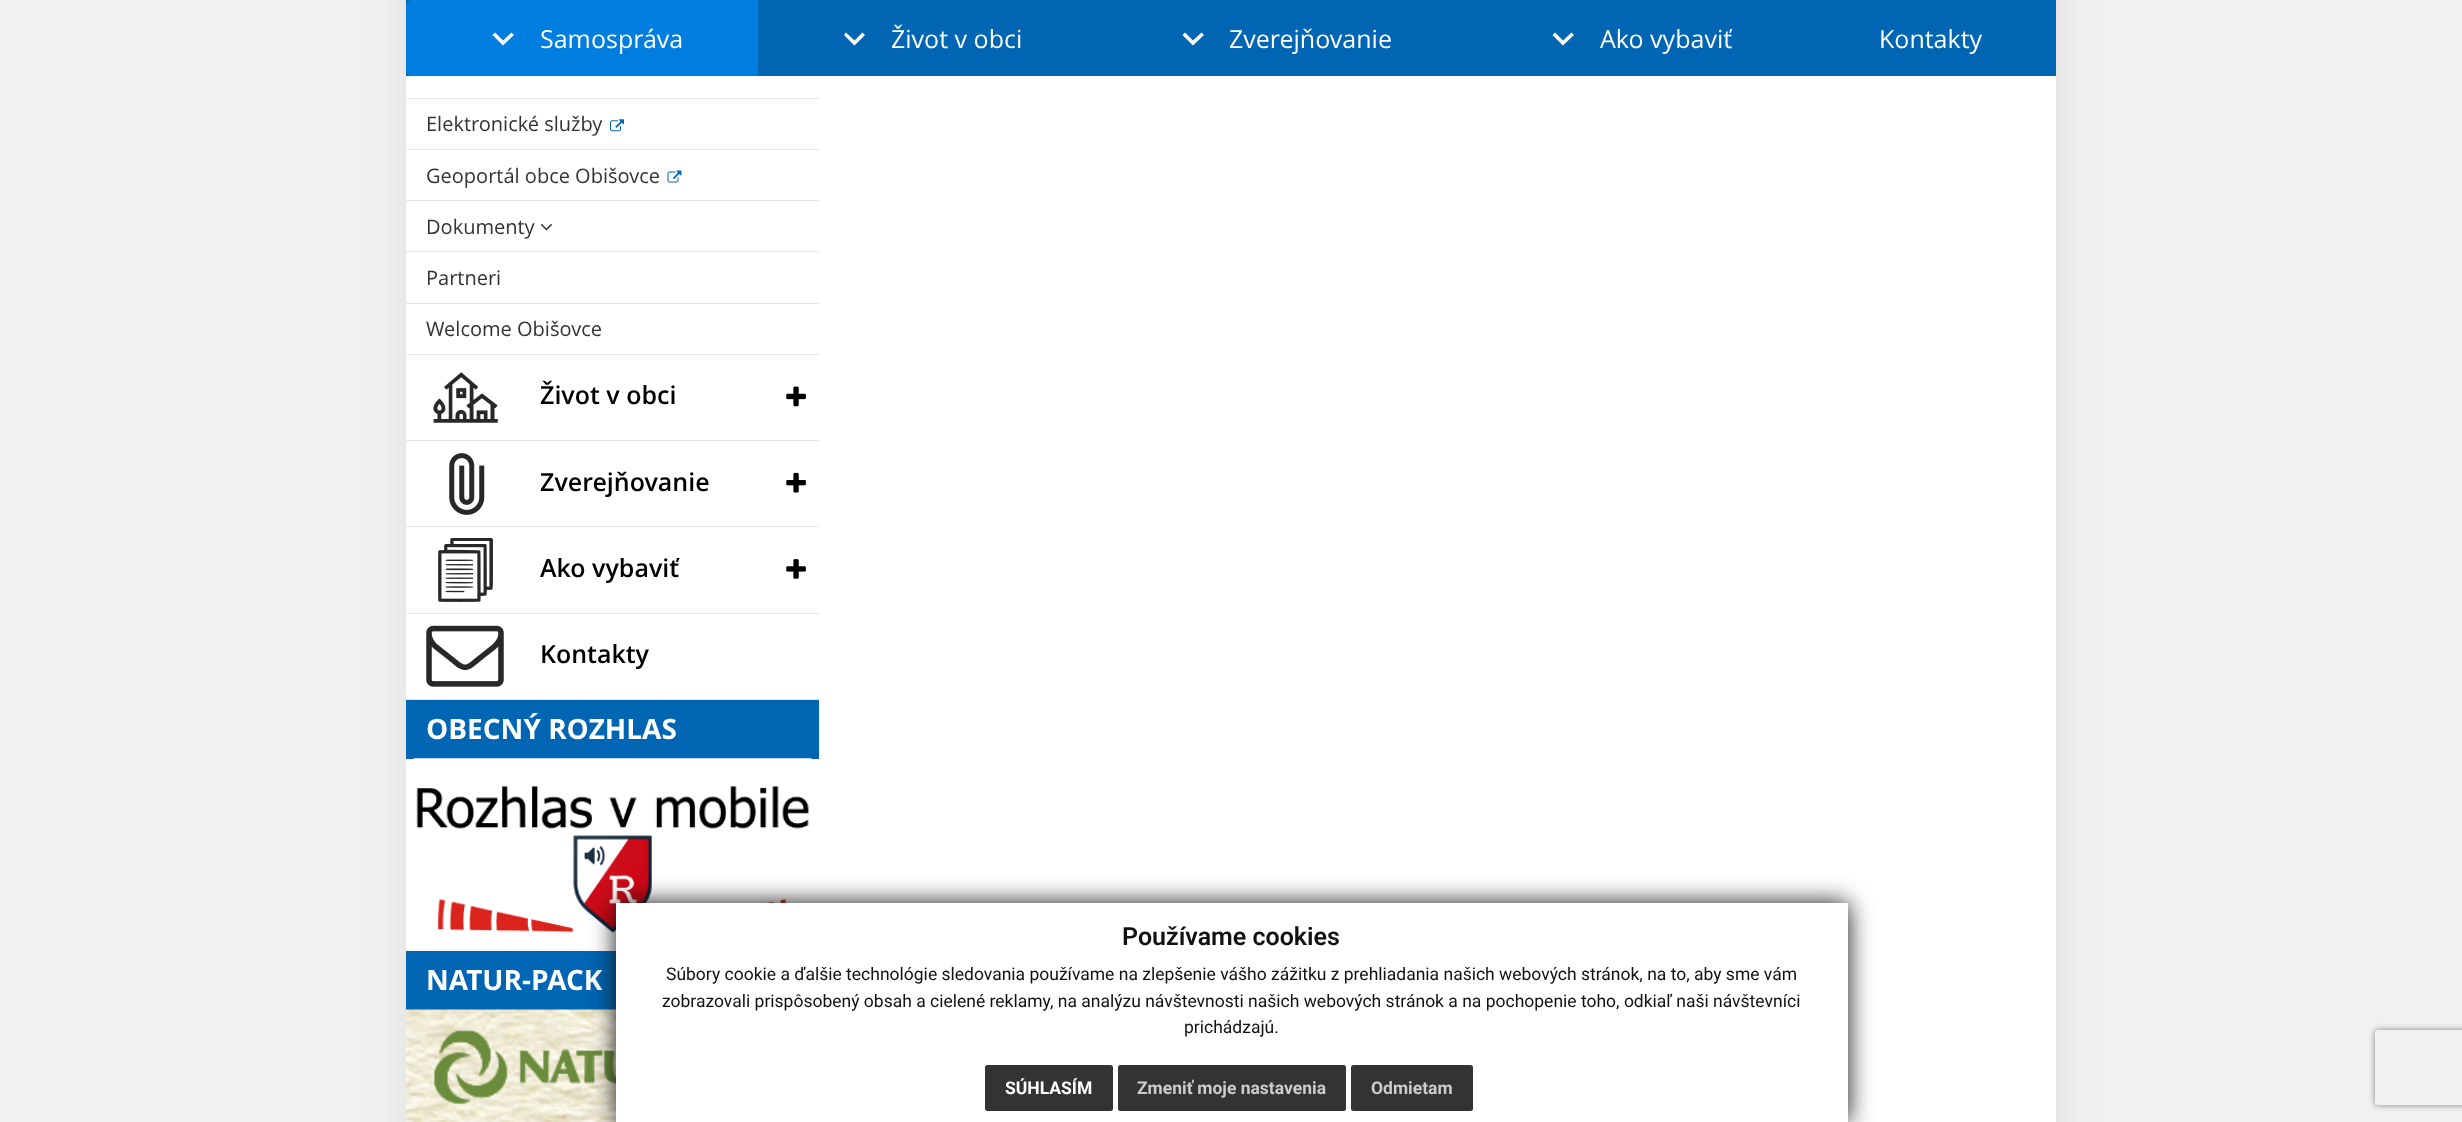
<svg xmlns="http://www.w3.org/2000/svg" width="2462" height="1122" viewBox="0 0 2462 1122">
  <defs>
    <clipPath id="clip1"><path d="M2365 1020H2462V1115H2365ZM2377.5 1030H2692.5C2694 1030 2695 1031 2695 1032.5V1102.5C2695 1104 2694 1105 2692.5 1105H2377.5C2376 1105 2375 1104 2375 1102.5V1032.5C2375 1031 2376 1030 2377.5 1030Z" clip-rule="evenodd"/></clipPath>
  </defs>
  <rect width="100%" height="100%" fill="rgb(241,241,241)"/>
  <rect x="406" y="-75" width="1650" height="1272" fill="rgba(0,0,0,0.07)" filter="blur(25px)"/>
  <rect x="406" y="0" width="1650" height="76" fill="rgb(0,101,179)"/>
  <path d="M412 0H758V76H412C408.5 76 406 73.5 406 70V6C406 2.5 408.5 0 412 0Z" fill="rgb(0,126,224)"/>
  <path d="M511.5 32.5L514 35L503 45.5L492.5 35L495 32.5L503 40.5Z" fill="rgb(255,255,255)"/>
  <text x="540" y="48" font-family="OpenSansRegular" font-size="25" fill="rgb(255,255,255)">Samospráva</text>
  <path d="M862.5 32.5L865 35L854.5 45.5L844 35L846 32.5L854.5 40.5Z" fill="rgb(255,255,255)"/>
  <text x="891" y="48" font-family="OpenSansRegular" font-size="25" fill="rgb(255,255,255)">Život v obci</text>
  <path d="M1201.5 32.5L1204 35L1193 45.5L1182.5 35L1185 32.5L1193 40.5Z" fill="rgb(255,255,255)"/>
  <text x="1229" y="48" font-family="OpenSansRegular" font-size="25" fill="rgb(255,255,255)">Zverejňovanie</text>
  <path d="M1571.5 32.5L1574 35L1563 45.5L1552.5 35L1555 32.5L1563 40.5Z" fill="rgb(255,255,255)"/>
  <g font-family="OpenSansRegular" font-size="25" fill="rgb(255,255,255)">
    <text x="1600" y="48">Ako vybaviť</text>
    <text x="1879" y="48">Kontakty</text>
  </g>
  <rect x="406" y="76" width="1650" height="1046" fill="rgb(255,255,255)"/>
  <rect x="406" y="98" width="413" height="1" fill="rgb(230,230,230)"/>
  <rect x="406" y="149" width="413" height="1" fill="rgb(230,230,230)"/>
  <text x="426" y="131" font-family="OpenSansRegular" font-size="20" fill="rgb(51,51,51)">Elektronické služby</text>
  <image x="610" y="119" width="14" height="13" href="pic1.png"/>
  <rect x="406" y="200" width="413" height="1" fill="rgb(230,230,230)"/>
  <text x="426" y="183" font-family="OpenSansRegular" font-size="20" fill="rgb(51,51,51)">Geoportál obce Obišovce</text>
  <image x="667" y="170" width="15" height="13" href="pic2.png"/>
  <rect x="406" y="251" width="413" height="1" fill="rgb(230,230,230)"/>
  <text x="426" y="234" font-family="OpenSansRegular" font-size="20" fill="rgb(51,51,51)">Dokumenty</text>
  <image x="540" y="223" width="12" height="8" href="pic3.png"/>
  <rect x="406" y="303" width="413" height="1" fill="rgb(230,230,230)"/>
  <text x="426" y="285" font-family="OpenSansRegular" font-size="20" fill="rgb(51,51,51)">Partneri</text>
  <rect x="406" y="354" width="413" height="1" fill="rgb(230,230,230)"/>
  <text x="426" y="336" font-family="OpenSansRegular" font-size="20" fill="rgb(51,51,51)">Welcome Obišovce</text>
  <rect x="406" y="440" width="413" height="1" fill="rgb(230,230,230)"/>
  <image x="433" y="372" width="65" height="51" href="pic4.png"/>
  <text x="540" y="404" font-family="Open Sans" font-size="25" font-weight="600" fill="rgb(0,0,0)">Život v obci</text>
  <image x="786" y="386" width="20" height="21" href="pic5.png"/>
  <rect x="406" y="526" width="413" height="1" fill="rgb(230,230,230)"/>
  <image x="449" y="453" width="36" height="62" href="pic6.png"/>
  <text x="540" y="491" font-family="Open Sans" font-size="25" font-weight="600" fill="rgb(0,0,0)">Zverejňovanie</text>
  <image x="786" y="472" width="20" height="21" href="pic7.png"/>
  <rect x="406" y="613" width="413" height="1" fill="rgb(230,230,230)"/>
  <image x="438" y="538" width="55" height="64" href="pic8.png"/>
  <text x="540" y="577" font-family="Open Sans" font-size="25" font-weight="600" fill="rgb(0,0,0)">Ako vybaviť</text>
  <image x="786" y="559" width="20" height="20" href="pic9.png"/>
  <rect x="406" y="699" width="413" height="1" fill="rgb(230,230,230)"/>
  <image x="426" y="625" width="78" height="62" href="pic10.png"/>
  <text x="540" y="663" font-family="Open Sans" font-size="25" font-weight="600" fill="rgb(0,0,0)">Kontakty</text>
  <rect x="406" y="700" width="413" height="59" fill="rgb(0,101,179)"/>
  <text x="426" y="739" font-family="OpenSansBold" font-size="28" font-weight="bold" fill="rgb(255,255,255)">OBECNÝ ROZHLAS</text>
  <image x="413" y="758" width="399" height="175" href="pic11.png"/>
  <rect x="406" y="951" width="210" height="59" fill="rgb(0,101,179)"/>
  <text x="426" y="990" font-family="OpenSansBold" font-size="28" font-weight="bold" fill="rgb(255,255,255)">NATUR-PACK</text>
  <image x="406" y="1009" width="210" height="113" href="pic12.png"/>
  <rect x="616" y="903" width="1232" height="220" fill="rgb(17,17,17)" filter="blur(12.5px)"/>
  <rect x="616" y="903" width="1232" height="219" fill="rgb(255,255,255)"/>
  <text x="1122" y="945" font-family="Roboto" font-size="25" font-weight="600" fill="rgb(17,17,17)">Používame cookies</text>
  <g font-family="Roboto" font-size="17.5" fill="rgb(17,17,17)">
    <text x="666" y="980">Súbory cookie a ďalšie technológie sledovania používame na zlepšenie vášho zážitku z prehliadania našich webových stránok, na to, aby sme vám</text>
    <text x="662" y="1007">zobrazovali prispôsobený obsah a cielené reklamy, na analýzu návštevnosti našich webových stránok a na pochopenie toho, odkiaľ naši návštevníci</text>
    <text x="1184" y="1033">prichádzajú.</text>
  </g>
  <rect x="985" y="1065" width="128" height="46" rx="2.5" fill="rgb(51,51,51)"/>
  <text x="1005" y="1094" font-family="Roboto" font-size="17.5" font-weight="bold" fill="rgb(255,255,255)">SÚHLASÍM</text>
  <rect x="1118" y="1065" width="228" height="46" rx="2.5" fill="rgb(51,51,51)"/>
  <text x="1137" y="1094" font-family="Roboto" font-size="17.5" font-weight="bold" fill="rgb(204,204,204)">Zmeniť moje nastavenia</text>
  <rect x="1351" y="1065" width="122" height="46" rx="2.5" fill="rgb(51,51,51)"/>
  <text x="1371" y="1094" font-family="Roboto" font-size="17.5" font-weight="bold" fill="rgb(204,204,204)">Odmietam</text>
  <g clip-path="url(#clip1)">
    <rect x="2375" y="1030" width="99" height="75" rx="2.5" fill="rgb(128,128,128)" filter="blur(3px)"/>
  </g>
</svg>
